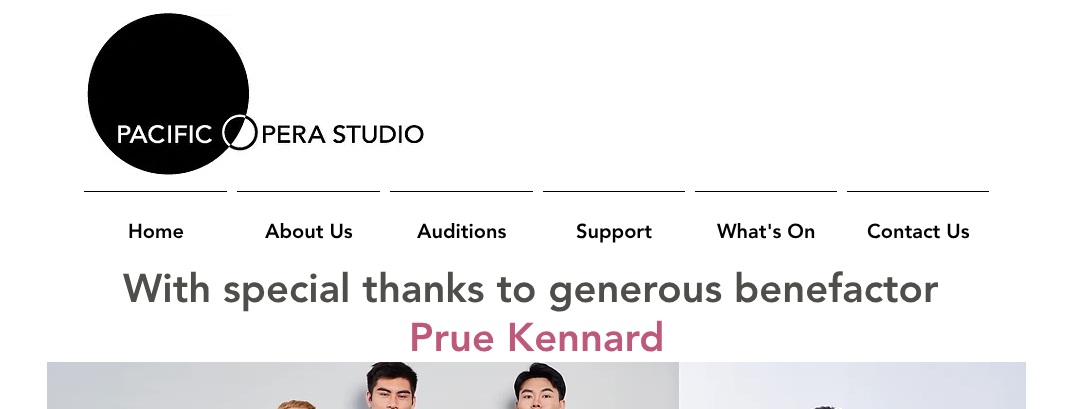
<svg xmlns="http://www.w3.org/2000/svg" width="1074" height="409" viewBox="0 0 1074 409">
  <rect width="100%" height="100%" fill="rgb(255,255,255)"/>
  <image x="87" y="13" width="337" height="162" href="pic1.png"/>
  <rect x="84" y="191" width="143" height="1" fill="rgb(0,0,0)"/>
  <text x="128" y="238" font-family="'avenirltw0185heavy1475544'" font-size="20" font-weight="900" fill="rgb(0,0,0)">Home</text>
  <rect x="237" y="191" width="143" height="1" fill="rgb(0,0,0)"/>
  <text x="265" y="238" font-family="'avenirltw0185heavy1475544'" font-size="20" font-weight="900" fill="rgb(0,0,0)">About Us</text>
  <rect x="390" y="191" width="143" height="1" fill="rgb(0,0,0)"/>
  <text x="417" y="238" font-family="'avenirltw0185heavy1475544'" font-size="20" font-weight="900" fill="rgb(0,0,0)">Auditions</text>
  <rect x="543" y="191" width="142" height="1" fill="rgb(0,0,0)"/>
  <text x="576" y="238" font-family="'avenirltw0185heavy1475544'" font-size="20" font-weight="900" fill="rgb(0,0,0)">Support</text>
  <rect x="695" y="191" width="142" height="1" fill="rgb(0,0,0)"/>
  <text x="717" y="238" font-family="'avenirltw0185heavy1475544'" font-size="20" font-weight="900" fill="rgb(0,0,0)">What's On</text>
  <rect x="847" y="191" width="142" height="1" fill="rgb(0,0,0)"/>
  <text x="867" y="238" font-family="'avenirltw0185heavy1475544'" font-size="20" font-weight="900" fill="rgb(0,0,0)">Contact Us</text>
  <text x="123" y="302" font-family="'avenirltw0185heavy1475544'" font-size="40" font-weight="900" fill="rgb(79,78,74)">With special thanks to generous benefactor</text>
  <text x="409" y="351" font-family="'avenirltw0185heavy1475544'" font-size="40" font-weight="900" fill="rgb(191,89,123)">Prue Kennard</text>
  <image x="47" y="362" width="979" height="47" href="pic2.png"/>
</svg>
